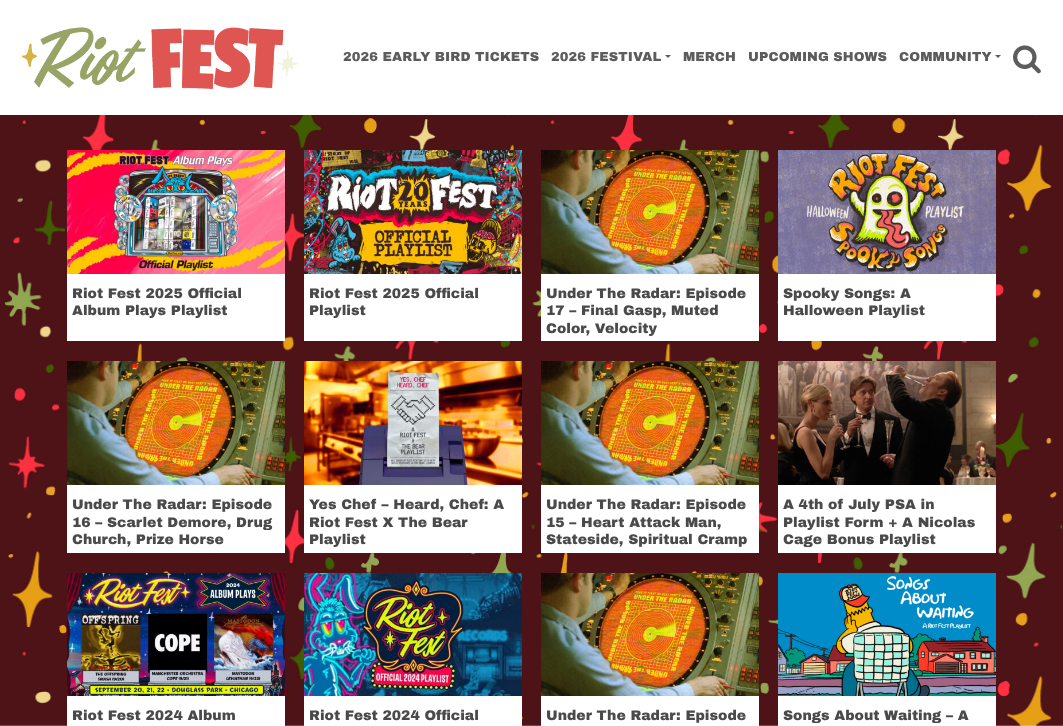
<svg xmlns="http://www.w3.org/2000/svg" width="1063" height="726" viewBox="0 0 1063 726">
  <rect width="100%" height="100%" fill="rgb(255,255,255)"/>
  <image x="0" y="115" width="1063" height="611" href="pic1.png"/>
  <image x="21" y="27" width="277" height="62" href="pic2.png"/>
  <g font-family="Archivo Black" font-size="13" font-weight="900" letter-spacing="0.1" fill="rgb(92,92,92)">
    <text x="343" y="61">2026 EARLY BIRD TICKETS</text>
    <text x="551" y="61">2026 FESTIVAL</text>
  </g>
  <path d="M665 55H671L668 58Z" fill="rgb(92,92,92)"/>
  <g font-family="Archivo Black" font-size="13" font-weight="900" letter-spacing="0.1" fill="rgb(92,92,92)">
    <text x="683" y="61">MERCH</text>
    <text x="748" y="61">UPCOMING SHOWS</text>
    <text x="899" y="61">COMMUNITY</text>
  </g>
  <path d="M995 55H1001L998 58Z" fill="rgb(92,92,92)"/>
  <image x="1013" y="45" width="28" height="29" href="pic3.png"/>
  <rect x="67" y="274" width="218" height="67" fill="rgb(255,255,255)"/>
  <image x="67" y="150" width="218" height="124" href="pic4.png"/>
  <g font-family="Archivo Black" font-size="14" font-weight="900" fill="rgb(74,74,74)">
    <text>
      <tspan x="72" y="298">Riot Fest 2025 Official</tspan>
      <tspan x="72" y="315">Album Plays Playlist</tspan>
    </text>
  </g>
  <rect x="304" y="274" width="218" height="67" fill="rgb(255,255,255)"/>
  <image x="304" y="150" width="218" height="124" href="pic5.png"/>
  <g font-family="Archivo Black" font-size="14" font-weight="900" fill="rgb(74,74,74)">
    <text>
      <tspan x="309" y="298">Riot Fest 2025 Official</tspan>
      <tspan x="309" y="315">Playlist</tspan>
    </text>
  </g>
  <rect x="541" y="274" width="218" height="67" fill="rgb(255,255,255)"/>
  <image x="541" y="150" width="218" height="124" href="pic6.png"/>
  <g font-family="Archivo Black" font-size="14" font-weight="900" fill="rgb(74,74,74)">
    <text>
      <tspan x="546" y="298">Under The Radar: Episode</tspan>
      <tspan x="546" y="315">17 – Final Gasp, Muted</tspan>
      <tspan x="546" y="333">Color, Velocity</tspan>
    </text>
  </g>
  <rect x="778" y="274" width="218" height="67" fill="rgb(255,255,255)"/>
  <image x="778" y="150" width="218" height="124" href="pic7.png"/>
  <g font-family="Archivo Black" font-size="14" font-weight="900" fill="rgb(74,74,74)">
    <text>
      <tspan x="783" y="298">Spooky Songs: A</tspan>
      <tspan x="783" y="315">Halloween Playlist</tspan>
    </text>
  </g>
  <rect x="67" y="485" width="218" height="68" fill="rgb(255,255,255)"/>
  <image x="67" y="361" width="218" height="124" href="pic6.png"/>
  <g font-family="Archivo Black" font-size="14" font-weight="900" fill="rgb(74,74,74)">
    <text>
      <tspan x="72" y="509">Under The Radar: Episode</tspan>
      <tspan x="72" y="527">16 – Scarlet Demore, Drug</tspan>
      <tspan x="72" y="544">Church, Prize Horse</tspan>
    </text>
  </g>
  <rect x="304" y="485" width="218" height="68" fill="rgb(255,255,255)"/>
  <image x="304" y="361" width="218" height="124" href="pic8.png"/>
  <g font-family="Archivo Black" font-size="14" font-weight="900" fill="rgb(74,74,74)">
    <text>
      <tspan x="309" y="509">Yes Chef – Heard, Chef: A</tspan>
      <tspan x="309" y="527">Riot Fest X The Bear</tspan>
      <tspan x="309" y="544">Playlist</tspan>
    </text>
  </g>
  <rect x="541" y="485" width="218" height="68" fill="rgb(255,255,255)"/>
  <image x="541" y="361" width="218" height="124" href="pic6.png"/>
  <g font-family="Archivo Black" font-size="14" font-weight="900" fill="rgb(74,74,74)">
    <text>
      <tspan x="546" y="509">Under The Radar: Episode</tspan>
      <tspan x="546" y="527">15 – Heart Attack Man,</tspan>
      <tspan x="546" y="544">Stateside, Spiritual Cramp</tspan>
    </text>
  </g>
  <rect x="778" y="485" width="218" height="68" fill="rgb(255,255,255)"/>
  <image x="778" y="361" width="218" height="124" href="pic9.png"/>
  <g font-family="Archivo Black" font-size="14" font-weight="900" fill="rgb(74,74,74)">
    <text>
      <tspan x="783" y="509">A 4th of July PSA in</tspan>
      <tspan x="783" y="527">Playlist Form + A Nicolas</tspan>
      <tspan x="783" y="544">Cage Bonus Playlist</tspan>
    </text>
  </g>
  <rect x="67" y="696" width="218" height="30" fill="rgb(255,255,255)"/>
  <image x="67" y="573" width="218" height="123" href="pic10.png"/>
  <text x="72" y="720" font-family="Archivo Black" font-size="14" font-weight="900" fill="rgb(74,74,74)">Riot Fest 2024 Album</text>
  <rect x="304" y="696" width="218" height="30" fill="rgb(255,255,255)"/>
  <image x="304" y="573" width="218" height="123" href="pic11.png"/>
  <text x="309" y="720" font-family="Archivo Black" font-size="14" font-weight="900" fill="rgb(74,74,74)">Riot Fest 2024 Official</text>
  <rect x="541" y="696" width="218" height="30" fill="rgb(255,255,255)"/>
  <image x="541" y="573" width="218" height="123" href="pic12.png"/>
  <text x="546" y="720" font-family="Archivo Black" font-size="14" font-weight="900" fill="rgb(74,74,74)">Under The Radar: Episode</text>
  <rect x="778" y="696" width="218" height="30" fill="rgb(255,255,255)"/>
  <image x="778" y="573" width="218" height="123" href="pic13.png"/>
  <text x="783" y="720" font-family="Archivo Black" font-size="14" font-weight="900" fill="rgb(74,74,74)">Songs About Waiting – A</text>
</svg>
